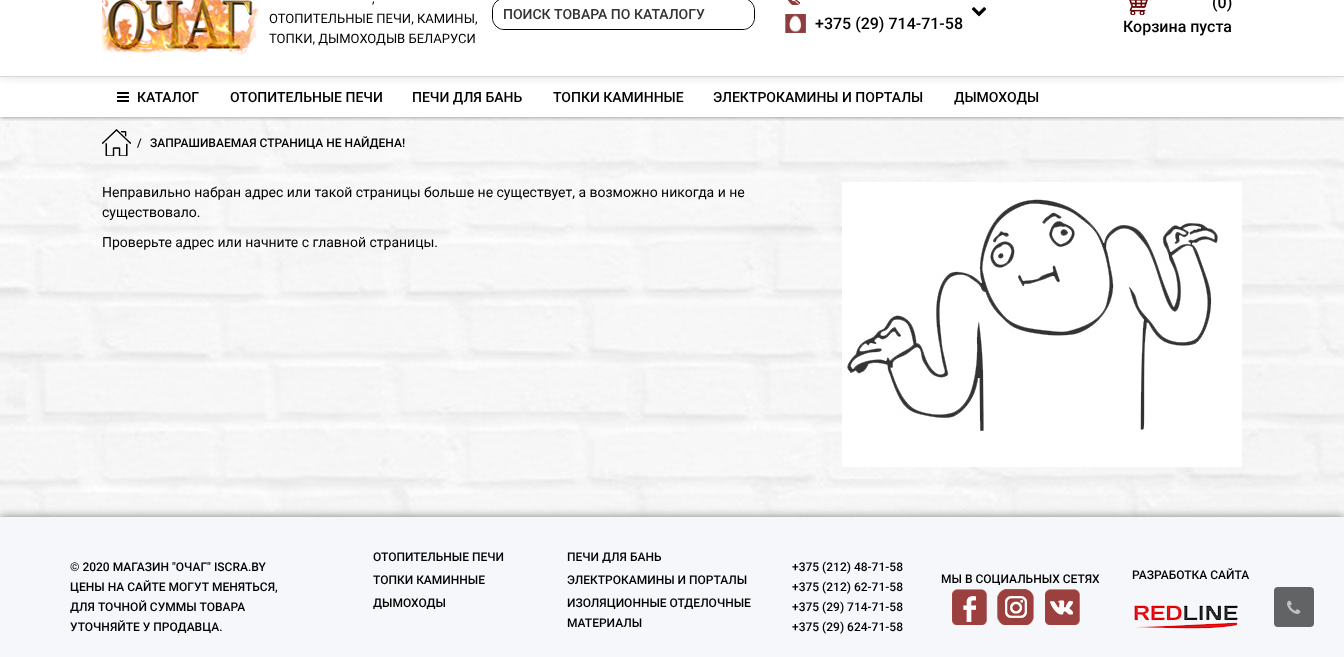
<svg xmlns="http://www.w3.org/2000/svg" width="1344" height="657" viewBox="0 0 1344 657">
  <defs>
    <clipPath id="clip1"><rect x="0" y="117" width="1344" height="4"/></clipPath>
  </defs>
  <rect width="100%" height="100%" fill="rgb(255,255,255)"/>
  <image x="0" y="117" width="1344" height="400" href="pic1.png"/>
  <g clip-path="url(#clip1)">
    <rect x="0" y="77" width="1344" height="40" fill="rgba(0,0,0,0.5)" filter="blur(2.5px)"/>
  </g>
  <image x="117" y="92" width="12" height="10" href="pic7.png"/>
  <rect x="0" y="-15" width="1344" height="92" fill="rgb(221,221,223)" filter="blur(5px)"/>
  <rect x="0" y="0" width="1344" height="76" fill="rgb(255,255,255)"/>
  <rect x="0" y="76" width="1344" height="1" fill="rgb(215,215,217)"/>
  <image x="102" y="0" width="158" height="55" href="pic2.png"/>
  <g font-family="Roboto" font-size="13" fill="rgb(0,0,0)">
    <text x="372" y="3">,</text>
    <text>
      <tspan x="269" y="23">ОТОПИТЕЛЬНЫЕ ПЕЧИ, КАМИНЫ,</tspan>
      <tspan x="269" y="43">ТОПКИ, ДЫМОХОДЫВ БЕЛАРУСИ</tspan>
    </text>
  </g>
  <rect x="492.5" y="-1.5" width="262" height="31" rx="11.5" fill="none" stroke="rgb(0,0,0)"/>
  <rect x="493" y="-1" width="261" height="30" rx="12" fill="rgb(255,255,255)"/>
  <text x="503" y="19" font-family="Roboto" font-size="14" font-weight="500" fill="rgb(51,51,51)">ПОИСК ТОВАРА ПО КАТАЛОГУ</text>
  <image x="1129" y="0" width="19" height="15" href="pic3.png"/>
  <g font-family="Roboto" font-size="16" font-weight="500" fill="rgb(0,0,0)">
    <text x="1212" y="8">(0)</text>
    <text x="1123" y="32">Корзина пуста</text>
  </g>
  <image x="788" y="0" width="12" height="5" href="pic4.png"/>
  <image x="971" y="7" width="16" height="10" href="pic5.png"/>
  <image x="785" y="14" width="21" height="19" href="pic6.png"/>
  <text x="815" y="29" font-family="Roboto" font-size="16" font-weight="500" fill="rgb(0,0,0)">+375 (29) 714-71-58</text>
  <g font-family="Roboto" font-size="14" font-weight="500" fill="rgb(0,0,0)">
    <text x="137" y="102">КАТАЛОГ</text>
    <text x="230" y="102">ОТОПИТЕЛЬНЫЕ ПЕЧИ</text>
    <text x="412" y="102">ПЕЧИ ДЛЯ БАНЬ</text>
    <text x="553" y="102">ТОПКИ КАМИННЫЕ</text>
    <text x="713" y="102">ЭЛЕКТРОКАМИНЫ И ПОРТАЛЫ</text>
    <text x="954" y="102">ДЫМОХОДЫ</text>
  </g>
  <image x="102" y="129" width="29" height="27" href="pic8.png"/>
  <g font-family="Roboto" font-size="12" font-weight="500" fill="rgb(0,0,0)">
    <text x="137" y="147">/</text>
    <text x="150" y="147">ЗАПРАШИВАЕМАЯ СТРАНИЦА НЕ НАЙДЕНА!</text>
  </g>
  <g font-family="Roboto" font-size="14" fill="rgb(0,0,0)">
    <text>
      <tspan x="102" y="197">Неправильно набран адрес или такой страницы больше не существует, а возможно никогда и не</tspan>
      <tspan x="102" y="217">существовало.</tspan>
    </text>
  </g>
  <image x="842" y="182" width="400" height="285" href="pic9.png"/>
  <text x="102" y="247" font-family="Roboto" font-size="14" fill="rgb(0,0,0)">Проверьте адрес или начните с главной страницы.</text>
  <rect x="0" y="517" width="1344" height="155" fill="rgba(0,0,0,0.5)" filter="blur(5px)"/>
  <rect x="0" y="517" width="1344" height="140" fill="rgb(245,247,250)"/>
  <g font-family="Roboto" font-size="12" font-weight="500" fill="rgb(0,0,0)">
    <text>
      <tspan x="70" y="571">© 2020 МАГАЗИН "ОЧАГ" ISCRA.BY</tspan>
      <tspan x="70" y="591">ЦЕНЫ НА САЙТЕ МОГУТ МЕНЯТЬСЯ,</tspan>
      <tspan x="70" y="611">ДЛЯ ТОЧНОЙ СУММЫ ТОВАРА</tspan>
      <tspan x="70" y="631">УТОЧНЯЙТЕ У ПРОДАВЦА.</tspan>
    </text>
    <text x="373" y="561">ОТОПИТЕЛЬНЫЕ ПЕЧИ</text>
    <text x="567" y="561">ПЕЧИ ДЛЯ БАНЬ</text>
    <text x="373" y="584">ТОПКИ КАМИННЫЕ</text>
    <text x="567" y="584">ЭЛЕКТРОКАМИНЫ И ПОРТАЛЫ</text>
    <text x="373" y="607">ДЫМОХОДЫ</text>
    <text>
      <tspan x="567" y="607">ИЗОЛЯЦИОННЫЕ ОТДЕЛОЧНЫЕ</tspan>
      <tspan x="567" y="627">МАТЕРИАЛЫ</tspan>
    </text>
    <text>
      <tspan x="792" y="571">+375 (212) 48-71-58</tspan>
      <tspan x="792" y="591">+375 (212) 62-71-58</tspan>
      <tspan x="792" y="611">+375 (29) 714-71-58</tspan>
      <tspan x="792" y="631">+375 (29) 624-71-58</tspan>
    </text>
    <text x="941" y="583">МЫ В СОЦИАЛЬНЫХ СЕТЯХ</text>
  </g>
  <image x="952" y="589" width="35" height="36" href="pic10.png"/>
  <image x="997" y="589" width="37" height="36" href="pic11.png"/>
  <image x="1045" y="589" width="35" height="36" href="pic12.png"/>
  <text x="1132" y="579" font-family="Roboto" font-size="12" font-weight="500" fill="rgb(0,0,0)">РАЗРАБОТКА САЙТА</text>
  <image x="1134" y="605" width="104" height="24" href="pic13.png"/>
  <rect x="1274" y="587" width="40" height="40" rx="4" fill="rgb(98,99,100)"/>
  <image x="1287" y="600" width="14" height="14" href="pic14.png"/>
</svg>
